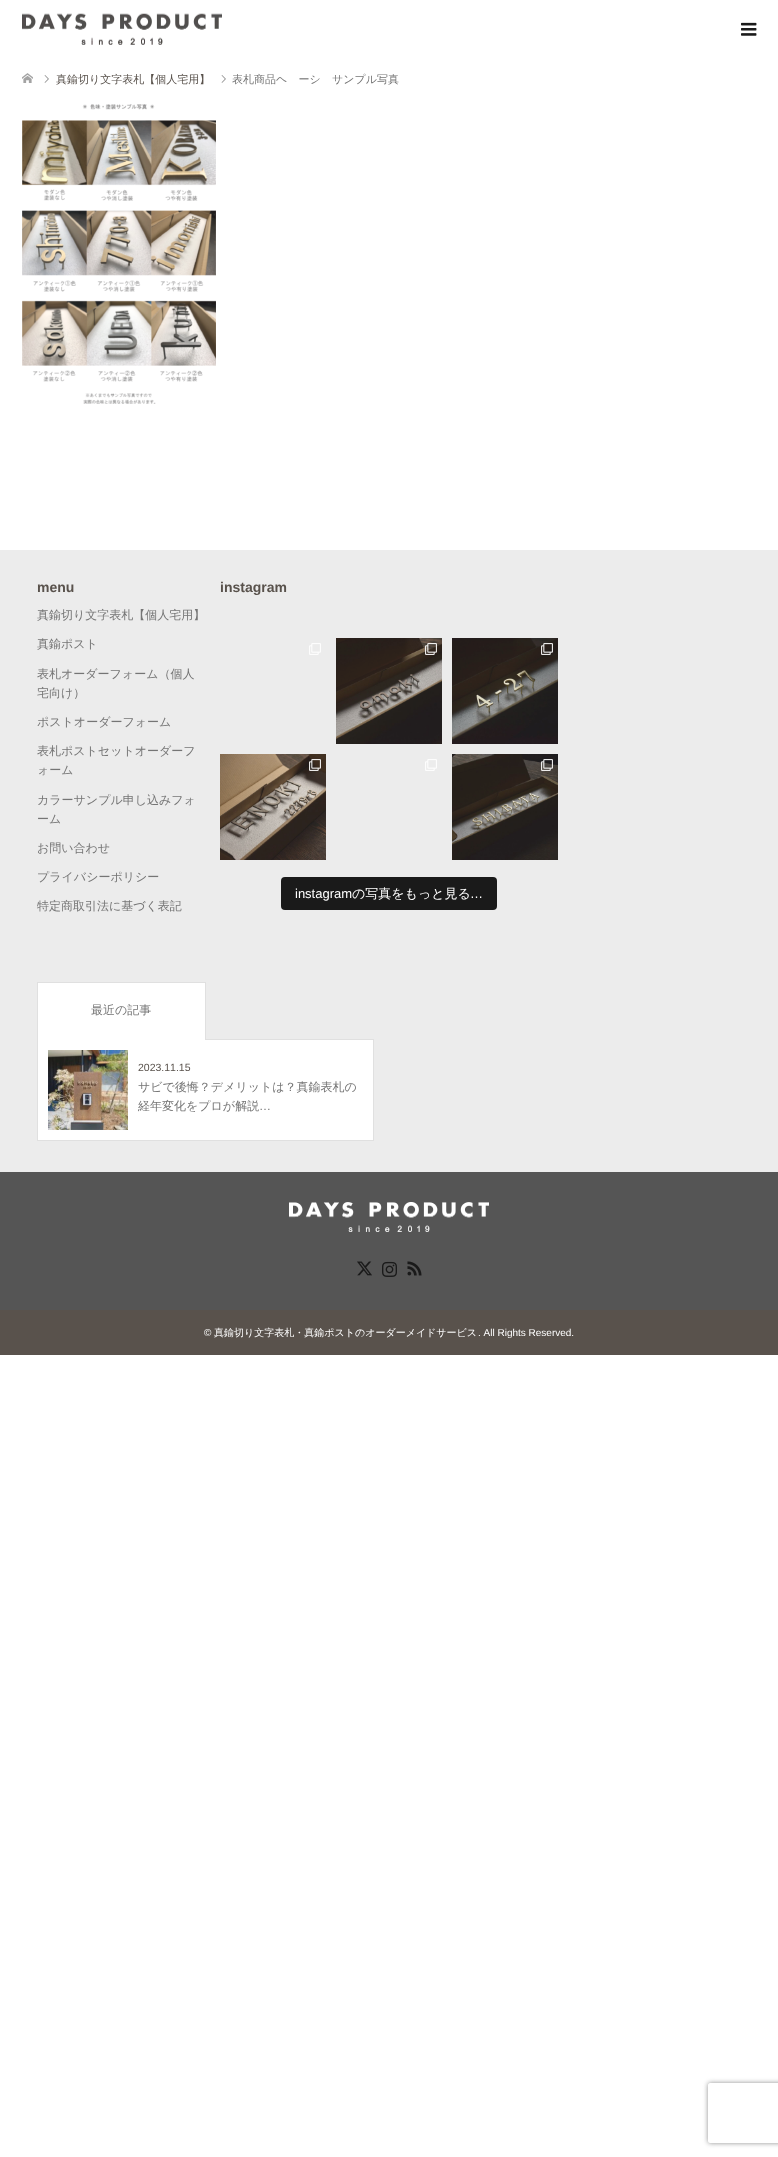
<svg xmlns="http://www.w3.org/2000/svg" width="778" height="2157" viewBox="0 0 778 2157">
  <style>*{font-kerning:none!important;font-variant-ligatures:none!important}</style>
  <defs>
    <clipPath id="clip1"><rect x="37" y="580" width="168" height="346"/></clipPath>
    <clipPath id="clip2"><path d="M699 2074H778V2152H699ZM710 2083H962C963 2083 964 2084 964 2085V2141C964 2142 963 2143 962 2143H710C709 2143 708 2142 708 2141V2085C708 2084 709 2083 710 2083Z" clip-rule="evenodd"/></clipPath>
  </defs>
  <rect width="100%" height="100%" fill="rgb(255,255,255)"/>
  <image x="22" y="13" width="200" height="32" href="pic1.png"/>
  <image x="741" y="22" width="16" height="14" href="pic2.png"/>
  <image x="22" y="73" width="11" height="10" href="pic3.png"/>
  <image x="44" y="75" width="5" height="8" href="pic4.png"/>
  <text x="56" y="83" font-family="WenQuanYi Zen Hei" font-size="11" font-weight="500" fill="rgb(89,82,76)">真鍮切り文字表札【個人宅用】</text>
  <image x="221" y="75" width="5" height="8" href="pic4.png"/>
  <text x="232" y="83" font-family="WenQuanYi Zen Hei" font-size="11" font-weight="500" fill="rgb(117,117,117)">表札商品ページサンプル写真</text>
  <image x="22" y="104" width="194" height="300" href="pic5.png"/>
  <rect x="0" y="550" width="778" height="622" fill="rgb(236,236,236)"/>
  <text x="37" y="592" font-family="Liberation Sans" font-size="14" font-weight="bold" fill="rgb(89,82,76)">menu</text>
  <g font-family="WenQuanYi Zen Hei" font-size="12" font-weight="500" fill="rgb(117,117,117)">
    <text x="37" y="619">真鍮切り文字表札【個人宅用】</text>
    <text x="37" y="648">真鍮ポスト</text>
    <text>
      <tspan x="37" y="678">表札オーダーフォーム（個人</tspan>
      <tspan x="37" y="697">宅向け）</tspan>
    </text>
    <text x="37" y="726">ポストオーダーフォーム</text>
    <text>
      <tspan x="37" y="755">表札ポストセットオーダーフ</tspan>
      <tspan x="37" y="774">ォーム</tspan>
    </text>
    <text>
      <tspan x="37" y="804">カラーサンプル申し込みフォ</tspan>
      <tspan x="37" y="823">ーム</tspan>
    </text>
    <text x="37" y="852">お問い合わせ</text>
    <text x="37" y="881">プライバシーポリシー</text>
  </g>
  <g clip-path="url(#clip1)">
    <text x="37" y="910" font-family="WenQuanYi Zen Hei" font-size="12" font-weight="500" fill="rgb(117,117,117)">特定商取引法に基づく表記</text>
  </g>
  <text x="220" y="592" font-family="Liberation Sans" font-size="14" font-weight="bold" fill="rgb(89,82,76)">instagram</text>
  <image x="309" y="643" width="12" height="12" href="pic6.png"/>
  <image x="336" y="638" width="106" height="106" href="pic7.png"/>
  <image x="425" y="643" width="12" height="12" href="pic8.png"/>
  <image x="452" y="638" width="106" height="106" href="pic9.png"/>
  <image x="541" y="643" width="12" height="12" href="pic10.png"/>
  <image x="220" y="754" width="106" height="106" href="pic11.png"/>
  <image x="309" y="759" width="12" height="12" href="pic12.png"/>
  <image x="425" y="759" width="12" height="12" href="pic6.png"/>
  <image x="452" y="754" width="106" height="106" href="pic13.png"/>
  <image x="541" y="759" width="12" height="12" href="pic14.png"/>
  <rect x="281" y="877" width="216" height="33" rx="4" fill="rgb(26,26,26)"/>
  <text x="295" y="898" font-family="Liberation Sans" font-size="13" fill="rgb(255,255,255)">instagram</text>
  <text x="352" y="898" font-family="WenQuanYi Zen Hei" font-size="13" font-weight="500" fill="rgb(255,255,255)">の写真をもっと見る</text>
  <text x="470" y="898" font-family="Liberation Sans" font-size="13" fill="rgb(255,255,255)">…</text>
  <rect x="38" y="983" width="167" height="57" fill="rgb(255,255,255)"/>
  <rect x="38" y="982" width="168" height="1" fill="rgb(224,224,224)"/>
  <rect x="205" y="982" width="1" height="58" fill="rgb(224,224,224)"/>
  <text x="91" y="1014" font-family="WenQuanYi Zen Hei" font-size="12" font-weight="500" fill="rgb(117,117,117)">最近の記事</text>
  <rect x="38" y="1040" width="335" height="100" fill="rgb(255,255,255)"/>
  <rect x="206" y="1039" width="168" height="1" fill="rgb(224,224,224)"/>
  <rect x="373" y="1039" width="1" height="102" fill="rgb(224,224,224)"/>
  <rect x="37" y="982" width="1" height="159" fill="rgb(224,224,224)"/>
  <rect x="38" y="1140" width="335" height="1" fill="rgb(224,224,224)"/>
  <image x="48" y="1050" width="80" height="80" href="pic15.png"/>
  <text x="138" y="1071" font-family="Liberation Sans" font-size="10.5" fill="rgb(89,82,76)">2023.11.15</text>
  <g font-family="WenQuanYi Zen Hei" font-size="12" font-weight="500" fill="rgb(117,117,117)">
    <text>
      <tspan x="138" y="1091">サビで後悔？デメリットは？真鍮表札の</tspan>
      <tspan x="138" y="1110">経年変化をプロが解説</tspan>
    </text>
  </g>
  <text x="259" y="1110" font-family="Liberation Sans" font-size="12" fill="rgb(117,117,117)">…</text>
  <rect x="0" y="1172" width="778" height="138" fill="rgb(85,85,85)"/>
  <image x="289" y="1202" width="200" height="30" href="pic16.png"/>
  <image x="357" y="1261" width="15" height="15" href="pic17.png"/>
  <image x="382" y="1261" width="15" height="16" href="pic18.png"/>
  <image x="407" y="1261" width="15" height="15" href="pic19.png"/>
  <rect x="0" y="1310" width="778" height="45" fill="rgb(89,82,76)"/>
  <text x="204" y="1336" font-family="Liberation Sans" font-size="10" fill="rgb(255,255,255)">©</text>
  <text x="214" y="1336" font-family="WenQuanYi Zen Hei" font-size="10" font-weight="500" fill="rgb(255,255,255)">真鍮切り文字表札・真鍮ポストのオーダーメイドサービス</text>
  <text x="478" y="1336" font-family="Liberation Sans" font-size="10" fill="rgb(255,255,255)">. All Rights Reserved.</text>
  <g clip-path="url(#clip2)">
    <rect x="708" y="2083" width="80" height="60" rx="2" fill="rgb(141,141,141)" filter="blur(2.5px)"/>
  </g>
</svg>
